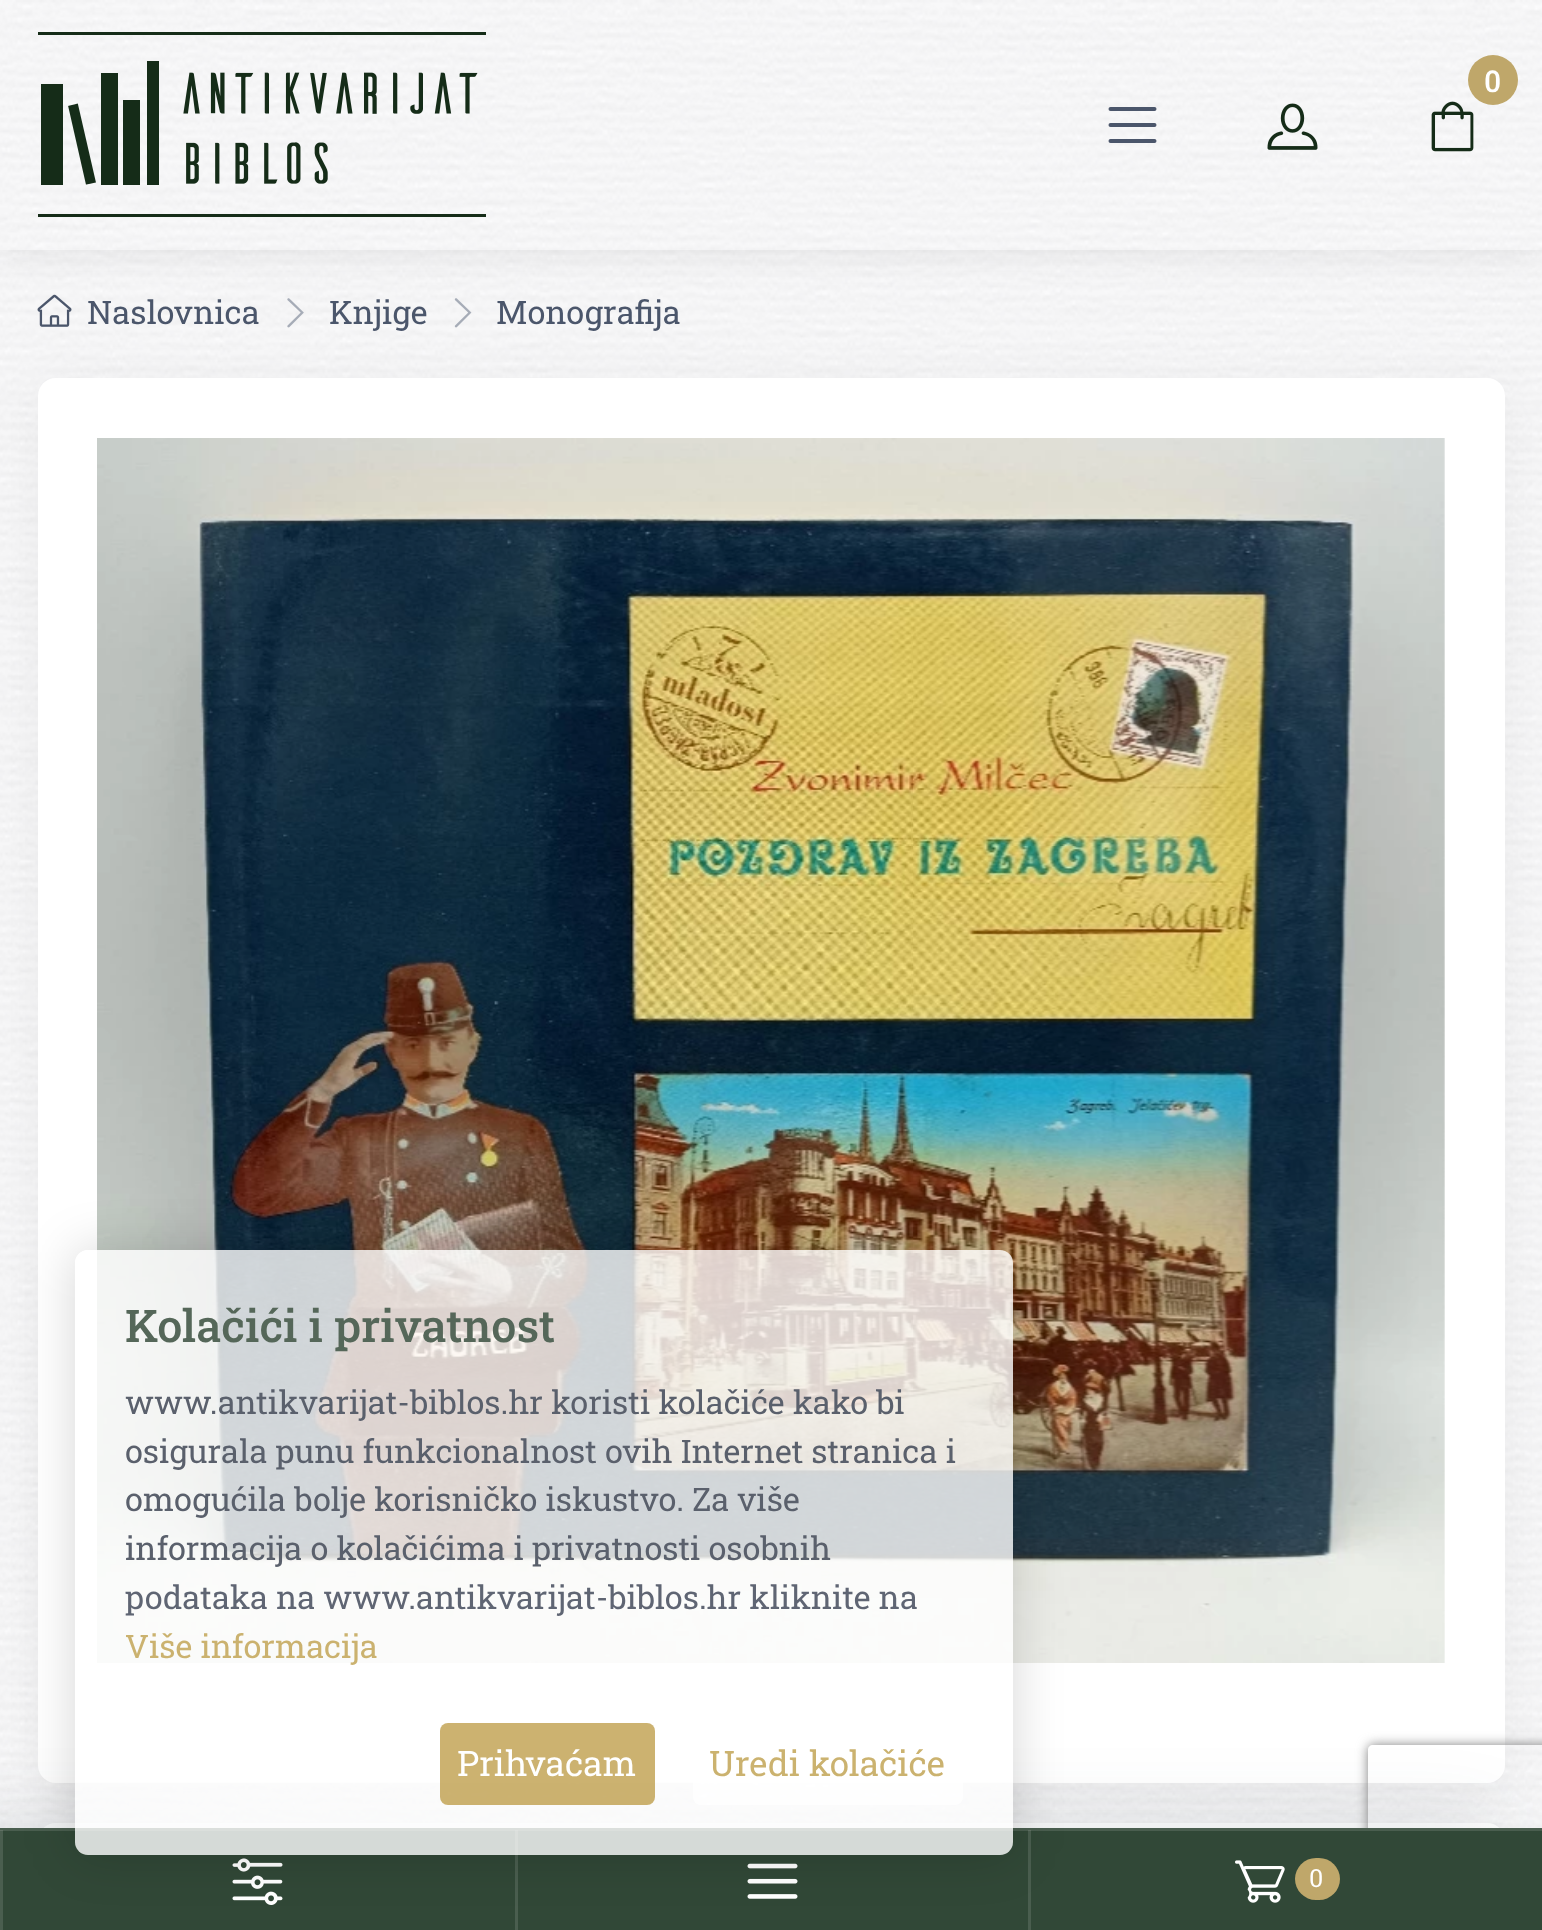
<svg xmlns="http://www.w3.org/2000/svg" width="1542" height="1930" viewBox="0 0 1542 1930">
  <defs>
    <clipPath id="clip1"><path d="M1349 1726H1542V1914H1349ZM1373 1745H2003C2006 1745 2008 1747 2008 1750V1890C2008 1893 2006 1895 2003 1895H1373C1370 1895 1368 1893 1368 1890V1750C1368 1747 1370 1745 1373 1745Z" clip-rule="evenodd"/></clipPath>
    <clipPath id="clip2"><path d="M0 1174H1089V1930H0ZM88 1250H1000C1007 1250 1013 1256 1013 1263V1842C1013 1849 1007 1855 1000 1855H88C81 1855 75 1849 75 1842V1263C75 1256 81 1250 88 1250Z" clip-rule="evenodd"/></clipPath>
  </defs>
  <rect width="100%" height="100%" fill="rgb(255,255,255)"/>
  <image x="0" y="250" width="1542" height="1578" href="pic1.png"/>
  <rect x="3" y="13" width="1537" height="245" fill="rgba(0,0,0,0.06)" filter="blur(15px)"/>
  <image x="0" y="0" width="1542" height="250" href="pic2.png"/>
  <image x="38" y="32" width="448" height="185" href="pic3.png"/>
  <image x="1431" y="101" width="43" height="51" href="pic4.png"/>
  <circle cx="1493" cy="80" r="25" fill="rgb(191,167,106)"/>
  <text x="1484" y="92" font-family="Roboto Slab" font-size="30" font-weight="500" fill="rgb(255,255,255)">0</text>
  <path d="M1110.5 109H1154.5M1110.5 125H1154.5M1110.5 141H1154.5" fill="none" stroke="rgb(75,86,107)" stroke-width="4" stroke-linecap="round"/>
  <image x="1267" y="103" width="51" height="47" href="pic5.png"/>
  <image x="37" y="294" width="35" height="33" href="pic6.png"/>
  <text x="87" y="324" font-family="Roboto Slab" font-size="32.5" fill="rgb(75,86,107)">Naslovnica</text>
  <image x="287" y="298" width="17" height="30" href="pic7.png"/>
  <text x="329" y="324" font-family="Roboto Slab" font-size="32.5" fill="rgb(75,86,107)">Knjige</text>
  <image x="454" y="298" width="18" height="30" href="pic8.png"/>
  <text x="496" y="324" font-family="Roboto Slab" font-size="32.5" fill="rgb(75,86,107)">Monografija</text>
  <rect x="40" y="390" width="1463" height="1400" rx="15" fill="rgba(0,0,0,0.05)" filter="blur(25px)"/>
  <rect x="38" y="378" width="1467" height="1405" rx="18" fill="rgb(255,255,255)"/>
  <image x="97" y="438" width="1348" height="1225" href="pic9.png"/>
  <rect x="38" y="1823" width="1467" height="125" rx="18" fill="rgb(255,255,255)"/>
  <rect x="-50" y="1828" width="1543" height="102" fill="rgba(43,52,69,0.15)" filter="blur(40px)"/>
  <g clip-path="url(#clip1)">
    <rect x="1368" y="1745" width="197" height="150" rx="5" fill="rgb(128,128,128)" filter="blur(6px)"/>
  </g>
  <rect x="0" y="1831" width="1542" height="99" fill="rgb(49,72,55)"/>
  <rect x="0" y="1828" width="1542" height="3" fill="rgb(74,94,79)"/>
  <rect x="0" y="1830" width="3" height="100" fill="rgba(255,255,255,0.12)"/>
  <image x="232" y="1858" width="51" height="47" href="pic10.png"/>
  <rect x="515" y="1830" width="3" height="100" fill="rgba(255,255,255,0.12)"/>
  <image x="747" y="1863" width="51" height="36" href="pic11.png"/>
  <rect x="1028" y="1830" width="3" height="100" fill="rgba(255,255,255,0.12)"/>
  <image x="1235" y="1860" width="50" height="43" href="pic12.png"/>
  <rect x="1295" y="1858" width="45" height="42" rx="21" fill="rgb(191,167,106)"/>
  <text x="1309" y="1887" font-family="Roboto Slab" font-size="25" fill="rgb(255,255,255)">0</text>
  <g clip-path="url(#clip2)">
    <rect x="75" y="1250" width="938" height="605" rx="13" fill="rgba(0,0,0,0.16)" filter="blur(25px)"/>
  </g>
  <rect x="75" y="1250" width="938" height="605" rx="13" fill="rgba(255,255,255,0.8)"/>
  <text x="125" y="1342" font-family="Roboto Slab" font-size="45" font-weight="500" fill="rgb(85,103,89)">Kolačići i privatnost</text>
  <g font-family="Roboto Slab" font-size="32.5" fill="rgb(90,96,108)">
    <text>
      <tspan x="125" y="1414">www.antikvarijat-biblos.hr koristi kolačiće kako bi</tspan>
      <tspan x="125" y="1463">osigurala punu funkcionalnost ovih Internet stranica i</tspan>
      <tspan x="125" y="1511">omogućila bolje korisničko iskustvo. Za više</tspan>
      <tspan x="125" y="1560">informacija o kolačićima i privatnosti osobnih</tspan>
    </text>
  </g>
  <text x="125" y="1609" font-family="Roboto Slab" font-size="32.5" fill="rgb(95,101,115)">podataka na www.antikvarijat-biblos.hr kliknite na</text>
  <text x="125" y="1658" font-family="Roboto Slab" font-size="32.5" fill="rgb(203,178,111)">Više informacija</text>
  <rect x="440" y="1723" width="215" height="82" rx="8" fill="rgba(191,159,76,0.8)"/>
  <text x="457" y="1776" font-family="Roboto Slab" font-size="35" fill="rgb(255,255,255)">Prihvaćam</text>
  <rect x="693" y="1723" width="270" height="82" rx="8" fill="rgba(255,255,255,0.8)"/>
  <text x="709" y="1776" font-family="Roboto Slab" font-size="35" fill="rgb(203,178,111)">Uredi kolačiće</text>
</svg>
